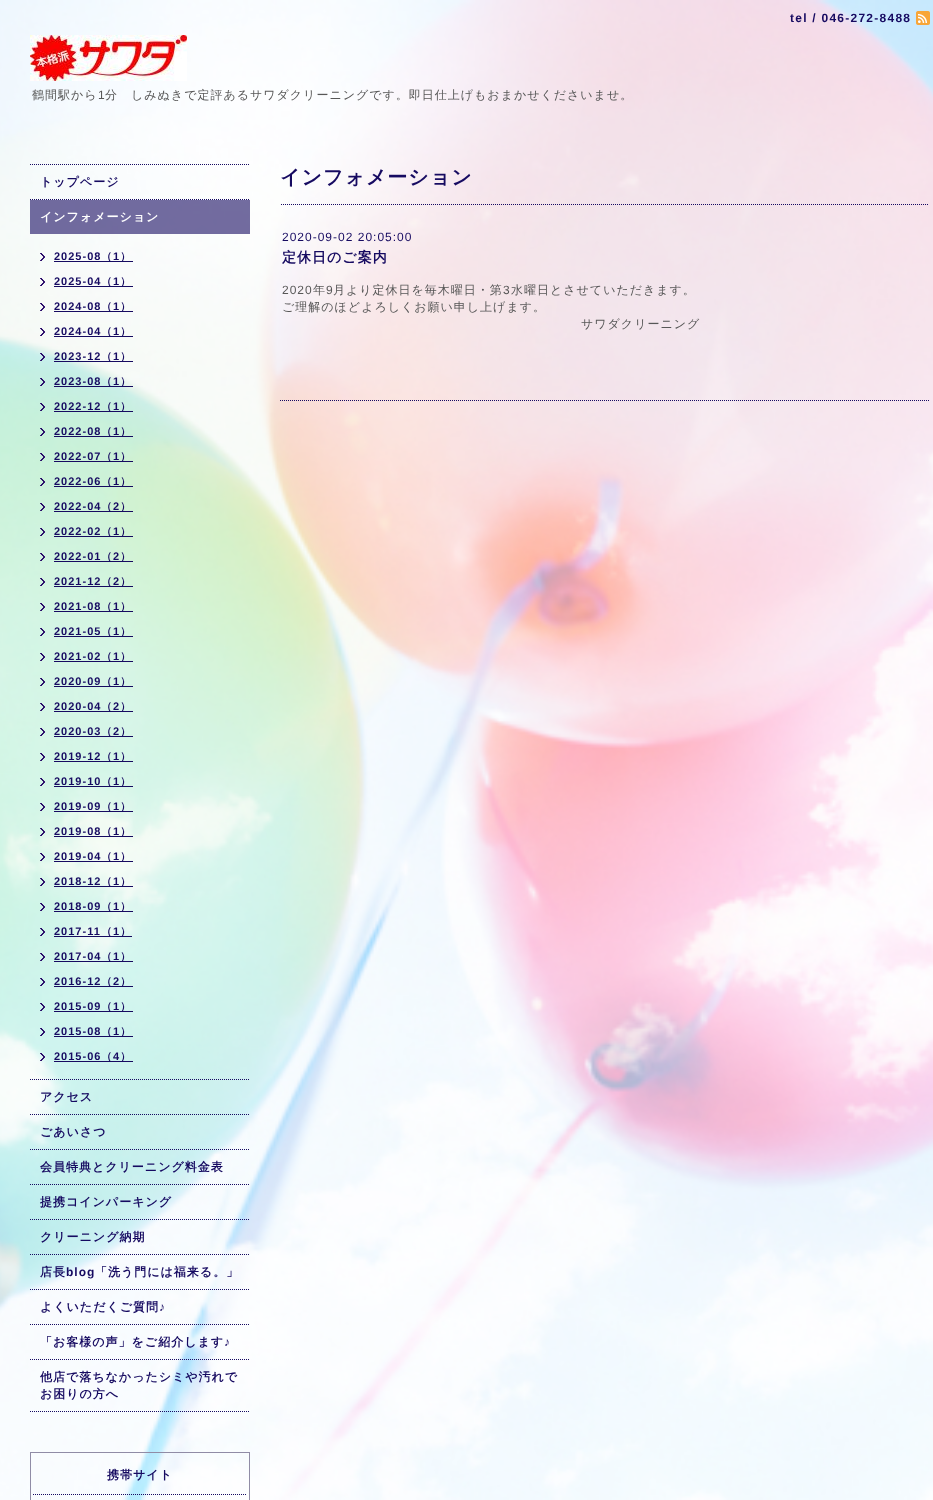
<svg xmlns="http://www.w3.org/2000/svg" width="933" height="1500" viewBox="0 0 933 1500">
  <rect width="100%" height="100%" fill="rgb(255,255,255)"/>
  <image x="0" y="0" width="933" height="1500" href="pic1.png"/>
  <text x="790" y="22" font-family="Liberation Sans" font-size="12" font-weight="bold" letter-spacing="1.25" fill="rgb(22,10,97)">tel / 046-272-8488</text>
  <image x="916" y="11" width="14" height="14" href="pic2.png"/>
  <image x="30" y="35" width="157" height="46" href="pic3.png"/>
  <text x="32" y="99" font-family="WenQuanYi Zen Hei" font-size="12" font-weight="500" letter-spacing="1" fill="rgb(87,87,87)">鶴間駅から</text>
  <text x="98" y="99" font-family="Liberation Sans" font-size="12" letter-spacing="1" fill="rgb(87,87,87)">1</text>
  <text x="105" y="99" font-family="WenQuanYi Zen Hei" font-size="12" font-weight="500" letter-spacing="1" fill="rgb(87,87,87)">分　しみぬきで定評あるサワダクリーニングです。即日仕上げもおまかせくださいませ。</text>
  <path d="M30 164.5H250" fill="none" stroke="rgb(22,10,97)" stroke-dasharray="1 1"/>
  <path d="M30 199.5H250" fill="none" stroke="rgb(22,10,97)" stroke-dasharray="1 1"/>
  <text x="40" y="186" font-family="WenQuanYi Zen Hei" font-size="12" font-weight="bold" letter-spacing="1" fill="rgb(22,10,97)">トップページ</text>
  <path d="M30 1079.5H250" fill="none" stroke="rgb(22,10,97)" stroke-dasharray="1 1"/>
  <rect x="30" y="200" width="220" height="34" fill="rgba(22,10,97,0.6)"/>
  <text x="40" y="221" font-family="WenQuanYi Zen Hei" font-size="12" font-weight="bold" letter-spacing="1" fill="rgb(255,255,255)">インフォメーション</text>
  <image x="40" y="253" width="5" height="8" href="pic4.png"/>
  <text x="54" y="260" font-family="Liberation Sans" font-size="11" font-weight="bold" letter-spacing="1" fill="rgb(22,10,97)">2025-08</text>
  <rect x="54" y="261" width="79" height="1" fill="rgb(22,10,97)"/>
  <text x="101" y="260" font-family="WenQuanYi Zen Hei" font-size="11" font-weight="bold" letter-spacing="1" fill="rgb(22,10,97)">（</text>
  <text x="113" y="260" font-family="Liberation Sans" font-size="11" font-weight="bold" letter-spacing="1" fill="rgb(22,10,97)">1</text>
  <text x="120" y="260" font-family="WenQuanYi Zen Hei" font-size="11" font-weight="bold" letter-spacing="1" fill="rgb(22,10,97)">）</text>
  <image x="40" y="278" width="5" height="8" href="pic5.png"/>
  <text x="54" y="285" font-family="Liberation Sans" font-size="11" font-weight="bold" letter-spacing="1" fill="rgb(22,10,97)">2025-04</text>
  <rect x="54" y="286" width="79" height="1" fill="rgb(22,10,97)"/>
  <text x="101" y="285" font-family="WenQuanYi Zen Hei" font-size="11" font-weight="bold" letter-spacing="1" fill="rgb(22,10,97)">（</text>
  <text x="113" y="285" font-family="Liberation Sans" font-size="11" font-weight="bold" letter-spacing="1" fill="rgb(22,10,97)">1</text>
  <text x="120" y="285" font-family="WenQuanYi Zen Hei" font-size="11" font-weight="bold" letter-spacing="1" fill="rgb(22,10,97)">）</text>
  <image x="40" y="303" width="5" height="8" href="pic6.png"/>
  <text x="54" y="310" font-family="Liberation Sans" font-size="11" font-weight="bold" letter-spacing="1" fill="rgb(22,10,97)">2024-08</text>
  <rect x="54" y="311" width="79" height="1" fill="rgb(22,10,97)"/>
  <text x="101" y="310" font-family="WenQuanYi Zen Hei" font-size="11" font-weight="bold" letter-spacing="1" fill="rgb(22,10,97)">（</text>
  <text x="113" y="310" font-family="Liberation Sans" font-size="11" font-weight="bold" letter-spacing="1" fill="rgb(22,10,97)">1</text>
  <text x="120" y="310" font-family="WenQuanYi Zen Hei" font-size="11" font-weight="bold" letter-spacing="1" fill="rgb(22,10,97)">）</text>
  <image x="40" y="328" width="5" height="8" href="pic7.png"/>
  <text x="54" y="335" font-family="Liberation Sans" font-size="11" font-weight="bold" letter-spacing="1" fill="rgb(22,10,97)">2024-04</text>
  <rect x="54" y="336" width="79" height="1" fill="rgb(22,10,97)"/>
  <text x="101" y="335" font-family="WenQuanYi Zen Hei" font-size="11" font-weight="bold" letter-spacing="1" fill="rgb(22,10,97)">（</text>
  <text x="113" y="335" font-family="Liberation Sans" font-size="11" font-weight="bold" letter-spacing="1" fill="rgb(22,10,97)">1</text>
  <text x="120" y="335" font-family="WenQuanYi Zen Hei" font-size="11" font-weight="bold" letter-spacing="1" fill="rgb(22,10,97)">）</text>
  <image x="40" y="353" width="5" height="8" href="pic8.png"/>
  <text x="54" y="360" font-family="Liberation Sans" font-size="11" font-weight="bold" letter-spacing="1" fill="rgb(22,10,97)">2023-12</text>
  <rect x="54" y="361" width="79" height="1" fill="rgb(22,10,97)"/>
  <text x="101" y="360" font-family="WenQuanYi Zen Hei" font-size="11" font-weight="bold" letter-spacing="1" fill="rgb(22,10,97)">（</text>
  <text x="113" y="360" font-family="Liberation Sans" font-size="11" font-weight="bold" letter-spacing="1" fill="rgb(22,10,97)">1</text>
  <text x="120" y="360" font-family="WenQuanYi Zen Hei" font-size="11" font-weight="bold" letter-spacing="1" fill="rgb(22,10,97)">）</text>
  <image x="40" y="378" width="5" height="8" href="pic9.png"/>
  <text x="54" y="385" font-family="Liberation Sans" font-size="11" font-weight="bold" letter-spacing="1" fill="rgb(22,10,97)">2023-08</text>
  <rect x="54" y="386" width="79" height="1" fill="rgb(22,10,97)"/>
  <text x="101" y="385" font-family="WenQuanYi Zen Hei" font-size="11" font-weight="bold" letter-spacing="1" fill="rgb(22,10,97)">（</text>
  <text x="113" y="385" font-family="Liberation Sans" font-size="11" font-weight="bold" letter-spacing="1" fill="rgb(22,10,97)">1</text>
  <text x="120" y="385" font-family="WenQuanYi Zen Hei" font-size="11" font-weight="bold" letter-spacing="1" fill="rgb(22,10,97)">）</text>
  <image x="40" y="403" width="5" height="8" href="pic10.png"/>
  <text x="54" y="410" font-family="Liberation Sans" font-size="11" font-weight="bold" letter-spacing="1" fill="rgb(22,10,97)">2022-12</text>
  <rect x="54" y="411" width="79" height="1" fill="rgb(22,10,97)"/>
  <text x="101" y="410" font-family="WenQuanYi Zen Hei" font-size="11" font-weight="bold" letter-spacing="1" fill="rgb(22,10,97)">（</text>
  <text x="113" y="410" font-family="Liberation Sans" font-size="11" font-weight="bold" letter-spacing="1" fill="rgb(22,10,97)">1</text>
  <text x="120" y="410" font-family="WenQuanYi Zen Hei" font-size="11" font-weight="bold" letter-spacing="1" fill="rgb(22,10,97)">）</text>
  <image x="40" y="428" width="5" height="8" href="pic11.png"/>
  <text x="54" y="435" font-family="Liberation Sans" font-size="11" font-weight="bold" letter-spacing="1" fill="rgb(22,10,97)">2022-08</text>
  <rect x="54" y="436" width="79" height="1" fill="rgb(22,10,97)"/>
  <text x="101" y="435" font-family="WenQuanYi Zen Hei" font-size="11" font-weight="bold" letter-spacing="1" fill="rgb(22,10,97)">（</text>
  <text x="113" y="435" font-family="Liberation Sans" font-size="11" font-weight="bold" letter-spacing="1" fill="rgb(22,10,97)">1</text>
  <text x="120" y="435" font-family="WenQuanYi Zen Hei" font-size="11" font-weight="bold" letter-spacing="1" fill="rgb(22,10,97)">）</text>
  <image x="40" y="453" width="5" height="8" href="pic12.png"/>
  <text x="54" y="460" font-family="Liberation Sans" font-size="11" font-weight="bold" letter-spacing="1" fill="rgb(22,10,97)">2022-07</text>
  <rect x="54" y="461" width="79" height="1" fill="rgb(22,10,97)"/>
  <text x="101" y="460" font-family="WenQuanYi Zen Hei" font-size="11" font-weight="bold" letter-spacing="1" fill="rgb(22,10,97)">（</text>
  <text x="113" y="460" font-family="Liberation Sans" font-size="11" font-weight="bold" letter-spacing="1" fill="rgb(22,10,97)">1</text>
  <text x="120" y="460" font-family="WenQuanYi Zen Hei" font-size="11" font-weight="bold" letter-spacing="1" fill="rgb(22,10,97)">）</text>
  <image x="40" y="478" width="5" height="8" href="pic13.png"/>
  <text x="54" y="485" font-family="Liberation Sans" font-size="11" font-weight="bold" letter-spacing="1" fill="rgb(22,10,97)">2022-06</text>
  <rect x="54" y="486" width="79" height="1" fill="rgb(22,10,97)"/>
  <text x="101" y="485" font-family="WenQuanYi Zen Hei" font-size="11" font-weight="bold" letter-spacing="1" fill="rgb(22,10,97)">（</text>
  <text x="113" y="485" font-family="Liberation Sans" font-size="11" font-weight="bold" letter-spacing="1" fill="rgb(22,10,97)">1</text>
  <text x="120" y="485" font-family="WenQuanYi Zen Hei" font-size="11" font-weight="bold" letter-spacing="1" fill="rgb(22,10,97)">）</text>
  <image x="40" y="503" width="5" height="8" href="pic14.png"/>
  <text x="54" y="510" font-family="Liberation Sans" font-size="11" font-weight="bold" letter-spacing="1" fill="rgb(22,10,97)">2022-04</text>
  <rect x="54" y="511" width="79" height="1" fill="rgb(22,10,97)"/>
  <text x="101" y="510" font-family="WenQuanYi Zen Hei" font-size="11" font-weight="bold" letter-spacing="1" fill="rgb(22,10,97)">（</text>
  <text x="113" y="510" font-family="Liberation Sans" font-size="11" font-weight="bold" letter-spacing="1" fill="rgb(22,10,97)">2</text>
  <text x="120" y="510" font-family="WenQuanYi Zen Hei" font-size="11" font-weight="bold" letter-spacing="1" fill="rgb(22,10,97)">）</text>
  <image x="40" y="528" width="5" height="8" href="pic15.png"/>
  <text x="54" y="535" font-family="Liberation Sans" font-size="11" font-weight="bold" letter-spacing="1" fill="rgb(22,10,97)">2022-02</text>
  <rect x="54" y="536" width="79" height="1" fill="rgb(22,10,97)"/>
  <text x="101" y="535" font-family="WenQuanYi Zen Hei" font-size="11" font-weight="bold" letter-spacing="1" fill="rgb(22,10,97)">（</text>
  <text x="113" y="535" font-family="Liberation Sans" font-size="11" font-weight="bold" letter-spacing="1" fill="rgb(22,10,97)">1</text>
  <text x="120" y="535" font-family="WenQuanYi Zen Hei" font-size="11" font-weight="bold" letter-spacing="1" fill="rgb(22,10,97)">）</text>
  <image x="40" y="553" width="5" height="8" href="pic16.png"/>
  <text x="54" y="560" font-family="Liberation Sans" font-size="11" font-weight="bold" letter-spacing="1" fill="rgb(22,10,97)">2022-01</text>
  <rect x="54" y="561" width="79" height="1" fill="rgb(22,10,97)"/>
  <text x="101" y="560" font-family="WenQuanYi Zen Hei" font-size="11" font-weight="bold" letter-spacing="1" fill="rgb(22,10,97)">（</text>
  <text x="113" y="560" font-family="Liberation Sans" font-size="11" font-weight="bold" letter-spacing="1" fill="rgb(22,10,97)">2</text>
  <text x="120" y="560" font-family="WenQuanYi Zen Hei" font-size="11" font-weight="bold" letter-spacing="1" fill="rgb(22,10,97)">）</text>
  <image x="40" y="578" width="5" height="8" href="pic17.png"/>
  <text x="54" y="585" font-family="Liberation Sans" font-size="11" font-weight="bold" letter-spacing="1" fill="rgb(22,10,97)">2021-12</text>
  <rect x="54" y="586" width="79" height="1" fill="rgb(22,10,97)"/>
  <text x="101" y="585" font-family="WenQuanYi Zen Hei" font-size="11" font-weight="bold" letter-spacing="1" fill="rgb(22,10,97)">（</text>
  <text x="113" y="585" font-family="Liberation Sans" font-size="11" font-weight="bold" letter-spacing="1" fill="rgb(22,10,97)">2</text>
  <text x="120" y="585" font-family="WenQuanYi Zen Hei" font-size="11" font-weight="bold" letter-spacing="1" fill="rgb(22,10,97)">）</text>
  <image x="40" y="603" width="5" height="8" href="pic18.png"/>
  <text x="54" y="610" font-family="Liberation Sans" font-size="11" font-weight="bold" letter-spacing="1" fill="rgb(22,10,97)">2021-08</text>
  <rect x="54" y="611" width="79" height="1" fill="rgb(22,10,97)"/>
  <text x="101" y="610" font-family="WenQuanYi Zen Hei" font-size="11" font-weight="bold" letter-spacing="1" fill="rgb(22,10,97)">（</text>
  <text x="113" y="610" font-family="Liberation Sans" font-size="11" font-weight="bold" letter-spacing="1" fill="rgb(22,10,97)">1</text>
  <text x="120" y="610" font-family="WenQuanYi Zen Hei" font-size="11" font-weight="bold" letter-spacing="1" fill="rgb(22,10,97)">）</text>
  <image x="40" y="628" width="5" height="8" href="pic19.png"/>
  <text x="54" y="635" font-family="Liberation Sans" font-size="11" font-weight="bold" letter-spacing="1" fill="rgb(22,10,97)">2021-05</text>
  <rect x="54" y="636" width="79" height="1" fill="rgb(22,10,97)"/>
  <text x="101" y="635" font-family="WenQuanYi Zen Hei" font-size="11" font-weight="bold" letter-spacing="1" fill="rgb(22,10,97)">（</text>
  <text x="113" y="635" font-family="Liberation Sans" font-size="11" font-weight="bold" letter-spacing="1" fill="rgb(22,10,97)">1</text>
  <text x="120" y="635" font-family="WenQuanYi Zen Hei" font-size="11" font-weight="bold" letter-spacing="1" fill="rgb(22,10,97)">）</text>
  <image x="40" y="653" width="5" height="8" href="pic20.png"/>
  <text x="54" y="660" font-family="Liberation Sans" font-size="11" font-weight="bold" letter-spacing="1" fill="rgb(22,10,97)">2021-02</text>
  <rect x="54" y="661" width="79" height="1" fill="rgb(22,10,97)"/>
  <text x="101" y="660" font-family="WenQuanYi Zen Hei" font-size="11" font-weight="bold" letter-spacing="1" fill="rgb(22,10,97)">（</text>
  <text x="113" y="660" font-family="Liberation Sans" font-size="11" font-weight="bold" letter-spacing="1" fill="rgb(22,10,97)">1</text>
  <text x="120" y="660" font-family="WenQuanYi Zen Hei" font-size="11" font-weight="bold" letter-spacing="1" fill="rgb(22,10,97)">）</text>
  <image x="40" y="678" width="5" height="8" href="pic21.png"/>
  <text x="54" y="685" font-family="Liberation Sans" font-size="11" font-weight="bold" letter-spacing="1" fill="rgb(22,10,97)">2020-09</text>
  <rect x="54" y="686" width="79" height="1" fill="rgb(22,10,97)"/>
  <text x="101" y="685" font-family="WenQuanYi Zen Hei" font-size="11" font-weight="bold" letter-spacing="1" fill="rgb(22,10,97)">（</text>
  <text x="113" y="685" font-family="Liberation Sans" font-size="11" font-weight="bold" letter-spacing="1" fill="rgb(22,10,97)">1</text>
  <text x="120" y="685" font-family="WenQuanYi Zen Hei" font-size="11" font-weight="bold" letter-spacing="1" fill="rgb(22,10,97)">）</text>
  <image x="40" y="703" width="5" height="8" href="pic22.png"/>
  <text x="54" y="710" font-family="Liberation Sans" font-size="11" font-weight="bold" letter-spacing="1" fill="rgb(22,10,97)">2020-04</text>
  <rect x="54" y="711" width="79" height="1" fill="rgb(22,10,97)"/>
  <text x="101" y="710" font-family="WenQuanYi Zen Hei" font-size="11" font-weight="bold" letter-spacing="1" fill="rgb(22,10,97)">（</text>
  <text x="113" y="710" font-family="Liberation Sans" font-size="11" font-weight="bold" letter-spacing="1" fill="rgb(22,10,97)">2</text>
  <text x="120" y="710" font-family="WenQuanYi Zen Hei" font-size="11" font-weight="bold" letter-spacing="1" fill="rgb(22,10,97)">）</text>
  <image x="40" y="728" width="5" height="8" href="pic23.png"/>
  <text x="54" y="735" font-family="Liberation Sans" font-size="11" font-weight="bold" letter-spacing="1" fill="rgb(22,10,97)">2020-03</text>
  <rect x="54" y="736" width="79" height="1" fill="rgb(22,10,97)"/>
  <text x="101" y="735" font-family="WenQuanYi Zen Hei" font-size="11" font-weight="bold" letter-spacing="1" fill="rgb(22,10,97)">（</text>
  <text x="113" y="735" font-family="Liberation Sans" font-size="11" font-weight="bold" letter-spacing="1" fill="rgb(22,10,97)">2</text>
  <text x="120" y="735" font-family="WenQuanYi Zen Hei" font-size="11" font-weight="bold" letter-spacing="1" fill="rgb(22,10,97)">）</text>
  <image x="40" y="753" width="5" height="8" href="pic24.png"/>
  <text x="54" y="760" font-family="Liberation Sans" font-size="11" font-weight="bold" letter-spacing="1" fill="rgb(22,10,97)">2019-12</text>
  <rect x="54" y="761" width="79" height="1" fill="rgb(22,10,97)"/>
  <text x="101" y="760" font-family="WenQuanYi Zen Hei" font-size="11" font-weight="bold" letter-spacing="1" fill="rgb(22,10,97)">（</text>
  <text x="113" y="760" font-family="Liberation Sans" font-size="11" font-weight="bold" letter-spacing="1" fill="rgb(22,10,97)">1</text>
  <text x="120" y="760" font-family="WenQuanYi Zen Hei" font-size="11" font-weight="bold" letter-spacing="1" fill="rgb(22,10,97)">）</text>
  <image x="40" y="778" width="5" height="8" href="pic25.png"/>
  <text x="54" y="785" font-family="Liberation Sans" font-size="11" font-weight="bold" letter-spacing="1" fill="rgb(22,10,97)">2019-10</text>
  <rect x="54" y="786" width="79" height="1" fill="rgb(22,10,97)"/>
  <text x="101" y="785" font-family="WenQuanYi Zen Hei" font-size="11" font-weight="bold" letter-spacing="1" fill="rgb(22,10,97)">（</text>
  <text x="113" y="785" font-family="Liberation Sans" font-size="11" font-weight="bold" letter-spacing="1" fill="rgb(22,10,97)">1</text>
  <text x="120" y="785" font-family="WenQuanYi Zen Hei" font-size="11" font-weight="bold" letter-spacing="1" fill="rgb(22,10,97)">）</text>
  <image x="40" y="803" width="5" height="8" href="pic26.png"/>
  <text x="54" y="810" font-family="Liberation Sans" font-size="11" font-weight="bold" letter-spacing="1" fill="rgb(22,10,97)">2019-09</text>
  <rect x="54" y="811" width="79" height="1" fill="rgb(22,10,97)"/>
  <text x="101" y="810" font-family="WenQuanYi Zen Hei" font-size="11" font-weight="bold" letter-spacing="1" fill="rgb(22,10,97)">（</text>
  <text x="113" y="810" font-family="Liberation Sans" font-size="11" font-weight="bold" letter-spacing="1" fill="rgb(22,10,97)">1</text>
  <text x="120" y="810" font-family="WenQuanYi Zen Hei" font-size="11" font-weight="bold" letter-spacing="1" fill="rgb(22,10,97)">）</text>
  <image x="40" y="828" width="5" height="8" href="pic27.png"/>
  <text x="54" y="835" font-family="Liberation Sans" font-size="11" font-weight="bold" letter-spacing="1" fill="rgb(22,10,97)">2019-08</text>
  <rect x="54" y="836" width="79" height="1" fill="rgb(22,10,97)"/>
  <text x="101" y="835" font-family="WenQuanYi Zen Hei" font-size="11" font-weight="bold" letter-spacing="1" fill="rgb(22,10,97)">（</text>
  <text x="113" y="835" font-family="Liberation Sans" font-size="11" font-weight="bold" letter-spacing="1" fill="rgb(22,10,97)">1</text>
  <text x="120" y="835" font-family="WenQuanYi Zen Hei" font-size="11" font-weight="bold" letter-spacing="1" fill="rgb(22,10,97)">）</text>
  <image x="40" y="853" width="5" height="8" href="pic28.png"/>
  <text x="54" y="860" font-family="Liberation Sans" font-size="11" font-weight="bold" letter-spacing="1" fill="rgb(22,10,97)">2019-04</text>
  <rect x="54" y="861" width="79" height="1" fill="rgb(22,10,97)"/>
  <text x="101" y="860" font-family="WenQuanYi Zen Hei" font-size="11" font-weight="bold" letter-spacing="1" fill="rgb(22,10,97)">（</text>
  <text x="113" y="860" font-family="Liberation Sans" font-size="11" font-weight="bold" letter-spacing="1" fill="rgb(22,10,97)">1</text>
  <text x="120" y="860" font-family="WenQuanYi Zen Hei" font-size="11" font-weight="bold" letter-spacing="1" fill="rgb(22,10,97)">）</text>
  <image x="40" y="878" width="5" height="8" href="pic29.png"/>
  <text x="54" y="885" font-family="Liberation Sans" font-size="11" font-weight="bold" letter-spacing="1" fill="rgb(22,10,97)">2018-12</text>
  <rect x="54" y="886" width="79" height="1" fill="rgb(22,10,97)"/>
  <text x="101" y="885" font-family="WenQuanYi Zen Hei" font-size="11" font-weight="bold" letter-spacing="1" fill="rgb(22,10,97)">（</text>
  <text x="113" y="885" font-family="Liberation Sans" font-size="11" font-weight="bold" letter-spacing="1" fill="rgb(22,10,97)">1</text>
  <text x="120" y="885" font-family="WenQuanYi Zen Hei" font-size="11" font-weight="bold" letter-spacing="1" fill="rgb(22,10,97)">）</text>
  <image x="40" y="903" width="5" height="8" href="pic30.png"/>
  <text x="54" y="910" font-family="Liberation Sans" font-size="11" font-weight="bold" letter-spacing="1" fill="rgb(22,10,97)">2018-09</text>
  <rect x="54" y="911" width="79" height="1" fill="rgb(22,10,97)"/>
  <text x="101" y="910" font-family="WenQuanYi Zen Hei" font-size="11" font-weight="bold" letter-spacing="1" fill="rgb(22,10,97)">（</text>
  <text x="113" y="910" font-family="Liberation Sans" font-size="11" font-weight="bold" letter-spacing="1" fill="rgb(22,10,97)">1</text>
  <text x="120" y="910" font-family="WenQuanYi Zen Hei" font-size="11" font-weight="bold" letter-spacing="1" fill="rgb(22,10,97)">）</text>
  <image x="40" y="928" width="5" height="8" href="pic31.png"/>
  <text x="54" y="935" font-family="Liberation Sans" font-size="11" font-weight="bold" letter-spacing="1" fill="rgb(22,10,97)">2017-11</text>
  <rect x="54" y="936" width="78" height="1" fill="rgb(22,10,97)"/>
  <text x="101" y="935" font-family="WenQuanYi Zen Hei" font-size="11" font-weight="bold" letter-spacing="1" fill="rgb(22,10,97)">（</text>
  <text x="113" y="935" font-family="Liberation Sans" font-size="11" font-weight="bold" letter-spacing="1" fill="rgb(22,10,97)">1</text>
  <text x="120" y="935" font-family="WenQuanYi Zen Hei" font-size="11" font-weight="bold" letter-spacing="1" fill="rgb(22,10,97)">）</text>
  <image x="40" y="953" width="5" height="8" href="pic32.png"/>
  <text x="54" y="960" font-family="Liberation Sans" font-size="11" font-weight="bold" letter-spacing="1" fill="rgb(22,10,97)">2017-04</text>
  <rect x="54" y="961" width="79" height="1" fill="rgb(22,10,97)"/>
  <text x="101" y="960" font-family="WenQuanYi Zen Hei" font-size="11" font-weight="bold" letter-spacing="1" fill="rgb(22,10,97)">（</text>
  <text x="113" y="960" font-family="Liberation Sans" font-size="11" font-weight="bold" letter-spacing="1" fill="rgb(22,10,97)">1</text>
  <text x="120" y="960" font-family="WenQuanYi Zen Hei" font-size="11" font-weight="bold" letter-spacing="1" fill="rgb(22,10,97)">）</text>
  <image x="40" y="978" width="5" height="8" href="pic33.png"/>
  <text x="54" y="985" font-family="Liberation Sans" font-size="11" font-weight="bold" letter-spacing="1" fill="rgb(22,10,97)">2016-12</text>
  <rect x="54" y="986" width="79" height="1" fill="rgb(22,10,97)"/>
  <text x="101" y="985" font-family="WenQuanYi Zen Hei" font-size="11" font-weight="bold" letter-spacing="1" fill="rgb(22,10,97)">（</text>
  <text x="113" y="985" font-family="Liberation Sans" font-size="11" font-weight="bold" letter-spacing="1" fill="rgb(22,10,97)">2</text>
  <text x="120" y="985" font-family="WenQuanYi Zen Hei" font-size="11" font-weight="bold" letter-spacing="1" fill="rgb(22,10,97)">）</text>
  <image x="40" y="1003" width="5" height="8" href="pic34.png"/>
  <text x="54" y="1010" font-family="Liberation Sans" font-size="11" font-weight="bold" letter-spacing="1" fill="rgb(22,10,97)">2015-09</text>
  <rect x="54" y="1011" width="79" height="1" fill="rgb(22,10,97)"/>
  <text x="101" y="1010" font-family="WenQuanYi Zen Hei" font-size="11" font-weight="bold" letter-spacing="1" fill="rgb(22,10,97)">（</text>
  <text x="113" y="1010" font-family="Liberation Sans" font-size="11" font-weight="bold" letter-spacing="1" fill="rgb(22,10,97)">1</text>
  <text x="120" y="1010" font-family="WenQuanYi Zen Hei" font-size="11" font-weight="bold" letter-spacing="1" fill="rgb(22,10,97)">）</text>
  <image x="40" y="1028" width="5" height="8" href="pic35.png"/>
  <text x="54" y="1035" font-family="Liberation Sans" font-size="11" font-weight="bold" letter-spacing="1" fill="rgb(22,10,97)">2015-08</text>
  <rect x="54" y="1036" width="79" height="1" fill="rgb(22,10,97)"/>
  <text x="101" y="1035" font-family="WenQuanYi Zen Hei" font-size="11" font-weight="bold" letter-spacing="1" fill="rgb(22,10,97)">（</text>
  <text x="113" y="1035" font-family="Liberation Sans" font-size="11" font-weight="bold" letter-spacing="1" fill="rgb(22,10,97)">1</text>
  <text x="120" y="1035" font-family="WenQuanYi Zen Hei" font-size="11" font-weight="bold" letter-spacing="1" fill="rgb(22,10,97)">）</text>
  <image x="40" y="1053" width="5" height="8" href="pic36.png"/>
  <text x="54" y="1060" font-family="Liberation Sans" font-size="11" font-weight="bold" letter-spacing="1" fill="rgb(22,10,97)">2015-06</text>
  <rect x="54" y="1061" width="79" height="1" fill="rgb(22,10,97)"/>
  <text x="101" y="1060" font-family="WenQuanYi Zen Hei" font-size="11" font-weight="bold" letter-spacing="1" fill="rgb(22,10,97)">（</text>
  <text x="113" y="1060" font-family="Liberation Sans" font-size="11" font-weight="bold" letter-spacing="1" fill="rgb(22,10,97)">4</text>
  <text x="120" y="1060" font-family="WenQuanYi Zen Hei" font-size="11" font-weight="bold" letter-spacing="1" fill="rgb(22,10,97)">）</text>
  <path d="M30 1114.5H250" fill="none" stroke="rgb(22,10,97)" stroke-dasharray="1 1"/>
  <text x="40" y="1101" font-family="WenQuanYi Zen Hei" font-size="12" font-weight="bold" letter-spacing="1" fill="rgb(22,10,97)">アクセス</text>
  <path d="M30 1149.5H250" fill="none" stroke="rgb(22,10,97)" stroke-dasharray="1 1"/>
  <text x="40" y="1136" font-family="WenQuanYi Zen Hei" font-size="12" font-weight="bold" letter-spacing="1" fill="rgb(22,10,97)">ごあいさつ</text>
  <path d="M30 1184.5H250" fill="none" stroke="rgb(22,10,97)" stroke-dasharray="1 1"/>
  <text x="40" y="1171" font-family="WenQuanYi Zen Hei" font-size="12" font-weight="bold" letter-spacing="1" fill="rgb(22,10,97)">会員特典とクリーニング料金表</text>
  <path d="M30 1219.5H250" fill="none" stroke="rgb(22,10,97)" stroke-dasharray="1 1"/>
  <text x="40" y="1206" font-family="WenQuanYi Zen Hei" font-size="12" font-weight="bold" letter-spacing="1" fill="rgb(22,10,97)">提携コインパーキング</text>
  <path d="M30 1254.5H250" fill="none" stroke="rgb(22,10,97)" stroke-dasharray="1 1"/>
  <text x="40" y="1241" font-family="WenQuanYi Zen Hei" font-size="12" font-weight="bold" letter-spacing="1" fill="rgb(22,10,97)">クリーニング納期</text>
  <path d="M30 1289.5H250" fill="none" stroke="rgb(22,10,97)" stroke-dasharray="1 1"/>
  <text x="40" y="1276" font-family="WenQuanYi Zen Hei" font-size="12" font-weight="bold" letter-spacing="1" fill="rgb(22,10,97)">店長</text>
  <text x="66" y="1276" font-family="Liberation Sans" font-size="12" font-weight="bold" letter-spacing="1" fill="rgb(22,10,97)">blog</text>
  <text x="95" y="1276" font-family="WenQuanYi Zen Hei" font-size="12" font-weight="bold" letter-spacing="1" fill="rgb(22,10,97)">「洗う門には福来る。」</text>
  <path d="M30 1324.5H250" fill="none" stroke="rgb(22,10,97)" stroke-dasharray="1 1"/>
  <text x="40" y="1311" font-family="WenQuanYi Zen Hei" font-size="12" font-weight="bold" letter-spacing="1" fill="rgb(22,10,97)">よくいただくご質問</text>
  <text x="159" y="1311" font-family="Liberation Sans" font-size="12" font-weight="bold" letter-spacing="1" fill="rgb(22,10,97)">♪</text>
  <path d="M30 1359.5H250" fill="none" stroke="rgb(22,10,97)" stroke-dasharray="1 1"/>
  <text x="40" y="1346" font-family="WenQuanYi Zen Hei" font-size="12" font-weight="bold" letter-spacing="1" fill="rgb(22,10,97)">「お客様の声」をご紹介します</text>
  <text x="224" y="1346" font-family="Liberation Sans" font-size="12" font-weight="bold" letter-spacing="1" fill="rgb(22,10,97)">♪</text>
  <path d="M30 1411.5H250" fill="none" stroke="rgb(22,10,97)" stroke-dasharray="1 1"/>
  <g font-family="WenQuanYi Zen Hei" font-size="12" font-weight="bold" letter-spacing="1" fill="rgb(22,10,97)">
    <text>
      <tspan x="40" y="1381">他店で落ちなかったシミや汚れで</tspan>
      <tspan x="40" y="1398">お困りの方へ</tspan>
    </text>
  </g>
  <text x="280" y="184" font-family="WenQuanYi Zen Hei" font-size="20" font-weight="bold" letter-spacing="1" fill="rgb(22,10,97)">インフォメーション</text>
  <path d="M280 400.5H930" fill="none" stroke="rgb(22,10,97)" stroke-dasharray="1 1"/>
  <path d="M281 204.5H929" fill="none" stroke="rgb(22,10,97)" stroke-dasharray="1 1"/>
  <text x="282" y="241" font-family="Liberation Sans" font-size="12" letter-spacing="1" fill="rgb(22,10,97)">2020-09-02 20:05:00</text>
  <text x="282" y="262" font-family="WenQuanYi Zen Hei" font-size="14" font-weight="bold" letter-spacing="1" fill="rgb(22,10,97)">定休日のご案内</text>
  <text x="282" y="294" font-family="Liberation Sans" font-size="12" letter-spacing="1" fill="rgb(87,87,87)">2020</text>
  <text x="313" y="294" font-family="WenQuanYi Zen Hei" font-size="12" font-weight="500" letter-spacing="1" fill="rgb(87,87,87)">年</text>
  <text x="326" y="294" font-family="Liberation Sans" font-size="12" letter-spacing="1" fill="rgb(87,87,87)">9</text>
  <text x="333" y="294" font-family="WenQuanYi Zen Hei" font-size="12" font-weight="500" letter-spacing="1" fill="rgb(87,87,87)">月より定休日を毎木曜日・第</text>
  <text x="503" y="294" font-family="Liberation Sans" font-size="12" letter-spacing="1" fill="rgb(87,87,87)">3</text>
  <g font-family="WenQuanYi Zen Hei" font-size="12" font-weight="500" letter-spacing="1" fill="rgb(87,87,87)">
    <text x="511" y="294">水曜日とさせていただきます。</text>
    <text x="282" y="311">ご理解のほどよろしくお願い申し上げます。</text>
    <text x="581" y="328">サワダクリーニング</text>
  </g>
  <rect x="30.5" y="1452.5" width="219" height="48" fill="none" stroke="rgb(144,140,166)"/>
  <path d="M33 1494.5H247" fill="none" stroke="rgb(22,10,97)" stroke-dasharray="1 1"/>
  <text x="107" y="1479" font-family="WenQuanYi Zen Hei" font-size="12" font-weight="bold" letter-spacing="1" fill="rgb(22,10,97)">携帯サイト</text>
</svg>
